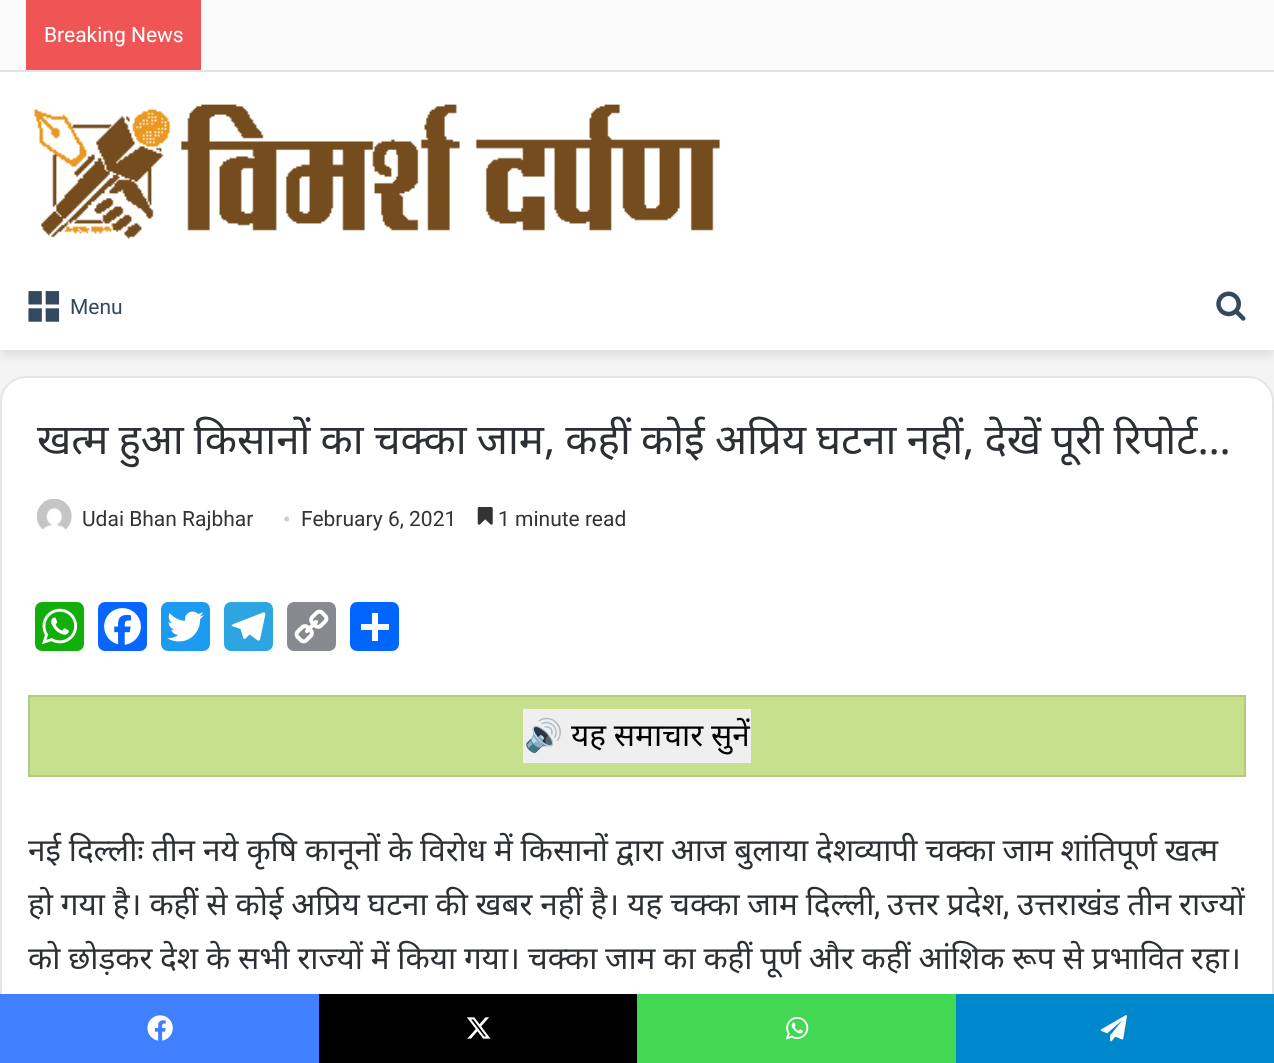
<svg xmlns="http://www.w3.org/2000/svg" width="1274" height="1063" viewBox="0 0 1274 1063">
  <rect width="100%" height="100%" fill="rgb(244,244,244)"/>
  <rect x="0" y="77" width="1274" height="278" fill="rgba(0,0,0,0.1)" filter="blur(6px)"/>
  <rect x="0" y="0" width="1274" height="70" fill="rgb(251,251,251)"/>
  <rect x="0" y="70" width="1274" height="2" fill="rgb(226,226,226)"/>
  <rect x="26" y="0" width="175" height="70" fill="rgb(240,85,85)"/>
  <text x="44" y="42" font-family="Roboto" font-size="21" fill="rgb(255,255,255)">Breaking News</text>
  <rect x="0" y="72" width="1274" height="278" fill="rgb(255,255,255)"/>
  <image x="34" y="104" width="686" height="135" href="pic1.png"/>
  <image x="28" y="291" width="32" height="31" href="pic2.png"/>
  <text x="70" y="314" font-family="Roboto" font-size="21" fill="rgb(52,73,94)">Menu</text>
  <image x="1216" y="291" width="30" height="30" href="pic3.png"/>
  <rect x="0" y="376" width="1274" height="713" rx="26" fill="rgb(255,255,255)"/>
  <rect x="1" y="377" width="1272" height="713" rx="25" fill="none" stroke="rgba(0,0,0,0.1)" stroke-width="2"/>
  <text x="37" y="454" word-spacing="-0.75" font-family="Noto Sans" font-size="42" fill="rgb(44,47,52)">खत्म हुआ किसानों का चक्का जाम, कहीं कोई अप्रिय घटना नहीं, देखें पूरी रिपोर्ट…</text>
  <image x="36" y="499" width="36" height="31" href="pic4.png"/>
  <text x="82" y="526" font-family="Roboto" font-size="21" fill="rgb(51,51,51)">Udai Bhan Rajbhar</text>
  <text x="283" y="526" font-family="Liberation Serif" font-size="21" fill="rgb(204,204,204)">•</text>
  <text x="301" y="526" font-family="Roboto" font-size="21" fill="rgb(51,51,51)">February 6, 2021</text>
  <image x="477" y="507" width="16" height="18" href="pic5.png"/>
  <text x="498" y="526" font-family="Roboto" font-size="21" fill="rgb(51,51,51)">1 minute read</text>
  <rect x="35" y="602" width="49" height="49" rx="7" fill="rgb(18,175,10)"/>
  <image x="42" y="608" width="36" height="37" href="pic6.png"/>
  <rect x="98" y="602" width="49" height="49" rx="7" fill="rgb(8,102,255)"/>
  <image x="104" y="608" width="37" height="37" href="pic7.png"/>
  <rect x="161" y="602" width="49" height="49" rx="7" fill="rgb(29,155,240)"/>
  <image x="167" y="611" width="37" height="31" href="pic8.png"/>
  <rect x="224" y="602" width="49" height="49" rx="7" fill="rgb(44,165,224)"/>
  <image x="231" y="612" width="35" height="29" href="pic9.png"/>
  <rect x="287" y="602" width="49" height="49" rx="7" fill="rgb(136,137,144)"/>
  <image x="294" y="609" width="35" height="35" href="pic10.png"/>
  <rect x="350" y="602" width="49" height="49" rx="7" fill="rgb(1,102,255)"/>
  <rect x="372" y="613" width="6" height="28" fill="rgb(255,255,255)"/>
  <rect x="361" y="624" width="28" height="6" fill="rgb(255,255,255)"/>
  <rect x="29" y="696" width="1216" height="80" fill="rgb(199,224,141)" stroke="rgb(179,202,127)" stroke-width="2"/>
  <rect x="523" y="709" width="228" height="54" fill="rgb(239,239,239)"/>
  <text x="524" y="746" font-family="Noto Color Emoji" font-size="31.5" fill="rgb(0,0,0)">🔊</text>
  <text x="571" y="746" word-spacing="-0.4" font-family="Noto Sans" font-size="31.5" fill="rgb(0,0,0)">यह समाचार सुनें</text>
  <g font-family="Noto Sans" font-size="31.5" fill="rgb(44,47,52)">
    <text>
      <tspan x="28" y="861" word-spacing="-0.4">नई दिल्लीः तीन नये कृषि कानूनों के विरोध में किसानों द्वारा आज बुलाया देशव्यापी चक्का जाम शांतिपूर्ण खत्म</tspan>
      <tspan x="28" y="915" word-spacing="-0.3">हो गया है। कहीं से कोई अप्रिय घटना की खबर नहीं है। यह चक्का जाम दिल्ली</tspan>
    </text>
  </g>
  <text x="874" y="915" font-family="Roboto" font-size="31.5" fill="rgb(44,47,52)">,</text>
  <text x="887" y="915" word-spacing="-0.3" font-family="Noto Sans" font-size="31.5" fill="rgb(44,47,52)">उत्तर प्रदेश</text>
  <text x="1003" y="915" font-family="Roboto" font-size="31.5" fill="rgb(44,47,52)">,</text>
  <g font-family="Noto Sans" font-size="31.5" fill="rgb(44,47,52)">
    <text x="1017" y="915" word-spacing="-0.3">उत्तराखंड तीन राज्यों</text>
    <text x="28" y="969" word-spacing="-0.4">को छोड़कर देश के सभी राज्यों में किया गया। चक्का जाम का कहीं पूर्ण और कहीं आंशिक रूप से प्रभावित रहा।</text>
  </g>
  <rect x="0" y="994" width="319" height="69" fill="rgb(64,128,255)"/>
  <image x="147" y="1015" width="26" height="26" href="pic11.png"/>
  <rect x="319" y="994" width="318" height="69" fill="rgb(0,0,0)"/>
  <image x="467" y="1017" width="24" height="22" href="pic12.png"/>
  <rect x="637" y="994" width="319" height="69" fill="rgb(67,216,84)"/>
  <image x="785" y="1016" width="24" height="24" href="pic13.png"/>
  <rect x="956" y="994" width="318" height="69" fill="rgb(0,136,204)"/>
  <image x="1100" y="1015" width="27" height="27" href="pic14.png"/>
</svg>
